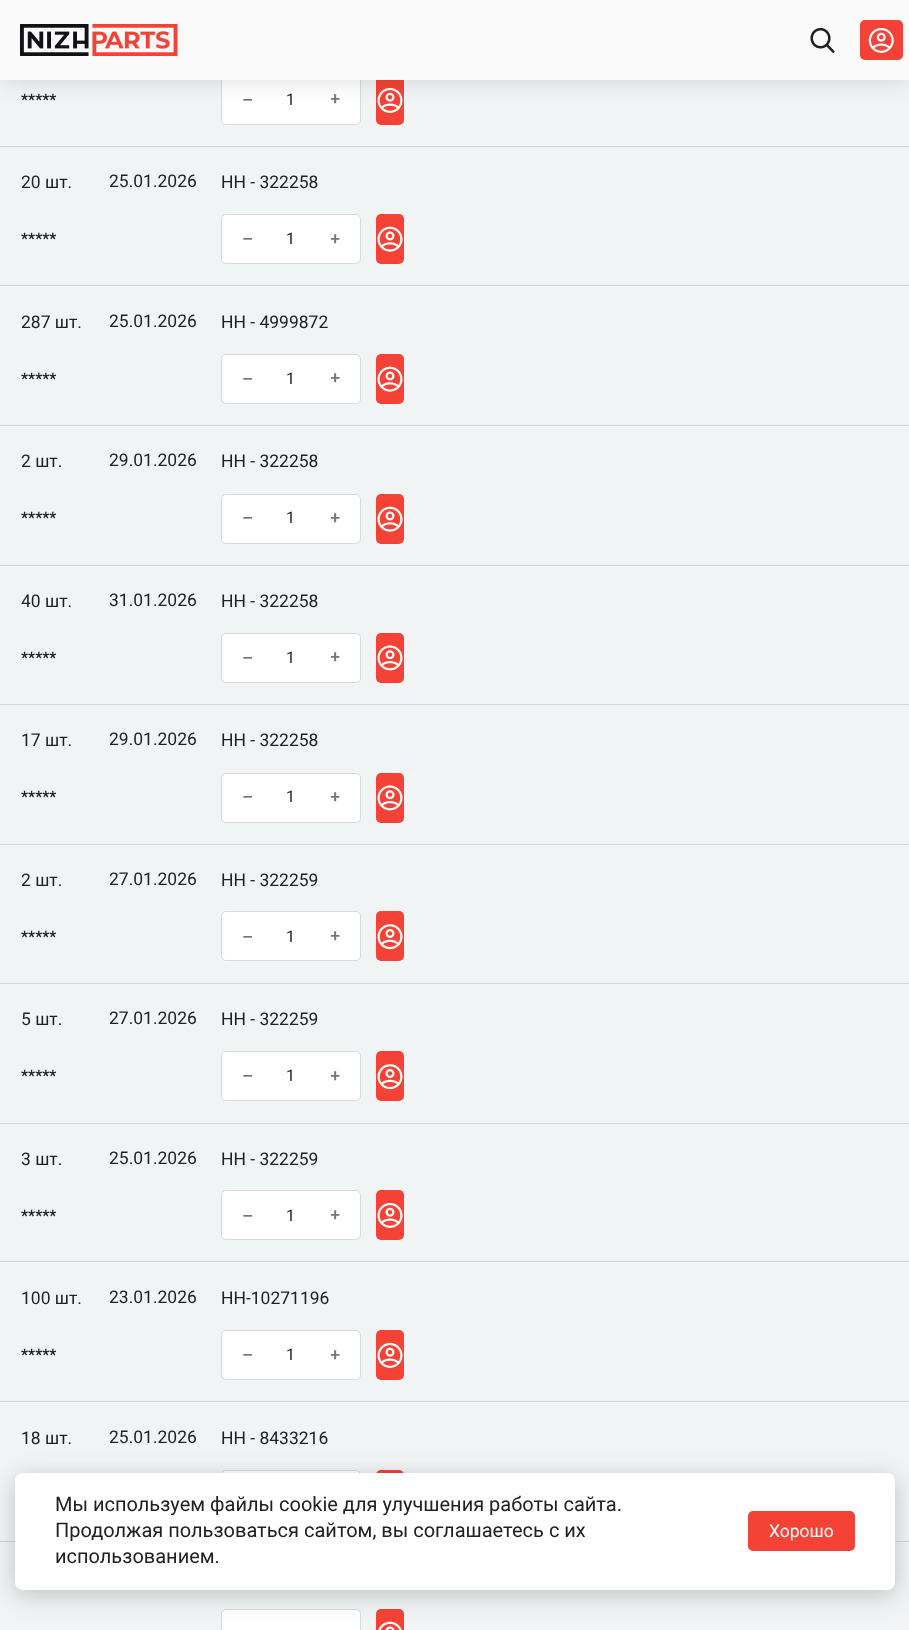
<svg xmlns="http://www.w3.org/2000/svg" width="909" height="1630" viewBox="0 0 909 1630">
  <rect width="100%" height="100%" fill="rgb(240,244,245)"/>
  <rect x="221.5" y="75.5" width="139" height="49" rx="4.5" fill="rgb(255,255,255)" stroke="rgb(218,218,218)"/>
  <rect x="376" y="75" width="28" height="50" rx="5" fill="rgb(244,67,54)"/>
  <image x="377" y="87" width="26" height="26" href="pic4.png"/>
  <rect x="0" y="1" width="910" height="80" fill="rgba(0,0,0,0.12)" filter="blur(11px)"/>
  <rect x="0" y="0" width="909" height="80" fill="rgb(250,250,250)"/>
  <image x="20" y="24" width="158" height="32" href="pic1.png"/>
  <image x="810" y="27" width="25" height="26" href="pic2.png"/>
  <rect x="860" y="20" width="43" height="40" rx="5" fill="rgb(244,67,54)"/>
  <image x="868" y="27" width="26" height="26" href="pic3.png"/>
  <text x="21" y="105" font-family="Roboto" font-size="16" font-weight="500" fill="rgb(33,33,33)">*****</text>
  <text x="242" y="106" font-family="Roboto" font-size="17.5" font-weight="500" fill="rgb(119,119,119)">–</text>
  <text x="286" y="105" font-family="Roboto" font-size="16" fill="rgb(33,33,33)">1</text>
  <text x="340" y="93" transform="rotate(180 340 93)" font-family="Roboto" font-size="17.5" font-weight="500" fill="rgb(119,119,119)">+</text>
  <rect x="0" y="146" width="909" height="1" fill="rgb(211,215,216)"/>
  <g font-family="Roboto" font-size="17.5" fill="rgb(33,33,33)">
    <text x="21" y="188">20 шт.</text>
    <text x="109" y="187">25.01.2026</text>
    <text x="221" y="188">НН - 322258</text>
  </g>
  <text x="21" y="244" font-family="Roboto" font-size="16" font-weight="500" fill="rgb(33,33,33)">*****</text>
  <rect x="221.5" y="214.5" width="139" height="49" rx="4.5" fill="rgb(255,255,255)" stroke="rgb(218,218,218)"/>
  <text x="242" y="245" font-family="Roboto" font-size="17.5" font-weight="500" fill="rgb(119,119,119)">–</text>
  <text x="286" y="244" font-family="Roboto" font-size="16" fill="rgb(33,33,33)">1</text>
  <text x="340" y="233" transform="rotate(180 340 233)" font-family="Roboto" font-size="17.5" font-weight="500" fill="rgb(119,119,119)">+</text>
  <rect x="376" y="214" width="28" height="50" rx="5" fill="rgb(244,67,54)"/>
  <image x="377" y="226" width="26" height="26" href="pic5.png"/>
  <rect x="0" y="285" width="909" height="1" fill="rgb(211,215,216)"/>
  <g font-family="Roboto" font-size="17.5" fill="rgb(33,33,33)">
    <text x="21" y="328">287 шт.</text>
    <text x="109" y="327">25.01.2026</text>
    <text x="221" y="328">НН - 4999872</text>
  </g>
  <text x="21" y="384" font-family="Roboto" font-size="16" font-weight="500" fill="rgb(33,33,33)">*****</text>
  <rect x="221.5" y="354.5" width="139" height="49" rx="4.5" fill="rgb(255,255,255)" stroke="rgb(218,218,218)"/>
  <text x="242" y="385" font-family="Roboto" font-size="17.5" font-weight="500" fill="rgb(119,119,119)">–</text>
  <text x="286" y="384" font-family="Roboto" font-size="16" fill="rgb(33,33,33)">1</text>
  <text x="340" y="372" transform="rotate(180 340 372)" font-family="Roboto" font-size="17.5" font-weight="500" fill="rgb(119,119,119)">+</text>
  <rect x="376" y="354" width="28" height="50" rx="5" fill="rgb(244,67,54)"/>
  <image x="377" y="366" width="26" height="26" href="pic5.png"/>
  <rect x="0" y="425" width="909" height="1" fill="rgb(211,215,216)"/>
  <g font-family="Roboto" font-size="17.5" fill="rgb(33,33,33)">
    <text x="21" y="467">2 шт.</text>
    <text x="109" y="466">29.01.2026</text>
    <text x="221" y="467">НН - 322258</text>
  </g>
  <text x="21" y="523" font-family="Roboto" font-size="16" font-weight="500" fill="rgb(33,33,33)">*****</text>
  <rect x="221.5" y="494.5" width="139" height="49" rx="4.5" fill="rgb(255,255,255)" stroke="rgb(218,218,218)"/>
  <text x="242" y="524" font-family="Roboto" font-size="17.5" font-weight="500" fill="rgb(119,119,119)">–</text>
  <text x="286" y="523" font-family="Roboto" font-size="16" fill="rgb(33,33,33)">1</text>
  <text x="340" y="512" transform="rotate(180 340 512)" font-family="Roboto" font-size="17.5" font-weight="500" fill="rgb(119,119,119)">+</text>
  <rect x="376" y="494" width="28" height="50" rx="5" fill="rgb(244,67,54)"/>
  <image x="377" y="506" width="26" height="26" href="pic5.png"/>
  <rect x="0" y="565" width="909" height="1" fill="rgb(211,215,216)"/>
  <g font-family="Roboto" font-size="17.5" fill="rgb(33,33,33)">
    <text x="21" y="607">40 шт.</text>
    <text x="109" y="606">31.01.2026</text>
    <text x="221" y="607">НН - 322258</text>
  </g>
  <text x="21" y="663" font-family="Roboto" font-size="16" font-weight="500" fill="rgb(33,33,33)">*****</text>
  <rect x="221.5" y="633.5" width="139" height="49" rx="4.5" fill="rgb(255,255,255)" stroke="rgb(218,218,218)"/>
  <text x="242" y="664" font-family="Roboto" font-size="17.5" font-weight="500" fill="rgb(119,119,119)">–</text>
  <text x="286" y="663" font-family="Roboto" font-size="16" fill="rgb(33,33,33)">1</text>
  <text x="340" y="651" transform="rotate(180 340 651)" font-family="Roboto" font-size="17.5" font-weight="500" fill="rgb(119,119,119)">+</text>
  <rect x="376" y="633" width="28" height="50" rx="5" fill="rgb(244,67,54)"/>
  <image x="377" y="645" width="26" height="26" href="pic6.png"/>
  <rect x="0" y="704" width="909" height="1" fill="rgb(211,215,216)"/>
  <g font-family="Roboto" font-size="17.5" fill="rgb(33,33,33)">
    <text x="21" y="746">17 шт.</text>
    <text x="109" y="745">29.01.2026</text>
    <text x="221" y="746">НН - 322258</text>
  </g>
  <text x="21" y="802" font-family="Roboto" font-size="16" font-weight="500" fill="rgb(33,33,33)">*****</text>
  <rect x="221.5" y="773.5" width="139" height="49" rx="4.5" fill="rgb(255,255,255)" stroke="rgb(218,218,218)"/>
  <text x="242" y="803" font-family="Roboto" font-size="17.5" font-weight="500" fill="rgb(119,119,119)">–</text>
  <text x="286" y="802" font-family="Roboto" font-size="16" fill="rgb(33,33,33)">1</text>
  <text x="340" y="791" transform="rotate(180 340 791)" font-family="Roboto" font-size="17.5" font-weight="500" fill="rgb(119,119,119)">+</text>
  <rect x="376" y="773" width="28" height="50" rx="5" fill="rgb(244,67,54)"/>
  <image x="377" y="785" width="26" height="26" href="pic6.png"/>
  <rect x="0" y="844" width="909" height="1" fill="rgb(211,215,216)"/>
  <g font-family="Roboto" font-size="17.5" fill="rgb(33,33,33)">
    <text x="21" y="886">2 шт.</text>
    <text x="109" y="885">27.01.2026</text>
    <text x="221" y="886">НН - 322259</text>
  </g>
  <text x="21" y="942" font-family="Roboto" font-size="16" font-weight="500" fill="rgb(33,33,33)">*****</text>
  <rect x="221.5" y="911.5" width="139" height="49" rx="4.5" fill="rgb(255,255,255)" stroke="rgb(218,218,218)"/>
  <text x="242" y="943" font-family="Roboto" font-size="17.5" font-weight="500" fill="rgb(119,119,119)">–</text>
  <text x="286" y="942" font-family="Roboto" font-size="16" fill="rgb(33,33,33)">1</text>
  <text x="340" y="930" transform="rotate(180 340 930)" font-family="Roboto" font-size="17.5" font-weight="500" fill="rgb(119,119,119)">+</text>
  <rect x="376" y="911" width="28" height="50" rx="5" fill="rgb(244,67,54)"/>
  <image x="377" y="924" width="26" height="26" href="pic7.png"/>
  <rect x="0" y="983" width="909" height="1" fill="rgb(211,215,216)"/>
  <g font-family="Roboto" font-size="17.5" fill="rgb(33,33,33)">
    <text x="21" y="1025">5 шт.</text>
    <text x="109" y="1024">27.01.2026</text>
    <text x="221" y="1025">НН - 322259</text>
  </g>
  <text x="21" y="1081" font-family="Roboto" font-size="16" font-weight="500" fill="rgb(33,33,33)">*****</text>
  <rect x="221.5" y="1051.5" width="139" height="49" rx="4.5" fill="rgb(255,255,255)" stroke="rgb(218,218,218)"/>
  <text x="242" y="1082" font-family="Roboto" font-size="17.5" font-weight="500" fill="rgb(119,119,119)">–</text>
  <text x="286" y="1081" font-family="Roboto" font-size="16" fill="rgb(33,33,33)">1</text>
  <text x="340" y="1070" transform="rotate(180 340 1070)" font-family="Roboto" font-size="17.5" font-weight="500" fill="rgb(119,119,119)">+</text>
  <rect x="376" y="1051" width="28" height="50" rx="5" fill="rgb(244,67,54)"/>
  <image x="377" y="1064" width="26" height="26" href="pic7.png"/>
  <rect x="0" y="1123" width="909" height="1" fill="rgb(211,215,216)"/>
  <g font-family="Roboto" font-size="17.5" fill="rgb(33,33,33)">
    <text x="21" y="1165">3 шт.</text>
    <text x="109" y="1164">25.01.2026</text>
    <text x="221" y="1165">НН - 322259</text>
  </g>
  <text x="21" y="1221" font-family="Roboto" font-size="16" font-weight="500" fill="rgb(33,33,33)">*****</text>
  <rect x="221.5" y="1190.5" width="139" height="49" rx="4.5" fill="rgb(255,255,255)" stroke="rgb(218,218,218)"/>
  <text x="242" y="1222" font-family="Roboto" font-size="17.5" font-weight="500" fill="rgb(119,119,119)">–</text>
  <text x="286" y="1221" font-family="Roboto" font-size="16" fill="rgb(33,33,33)">1</text>
  <text x="340" y="1209" transform="rotate(180 340 1209)" font-family="Roboto" font-size="17.5" font-weight="500" fill="rgb(119,119,119)">+</text>
  <rect x="376" y="1190" width="28" height="50" rx="5" fill="rgb(244,67,54)"/>
  <image x="377" y="1202" width="26" height="26" href="pic4.png"/>
  <rect x="0" y="1261" width="909" height="1" fill="rgb(211,215,216)"/>
  <g font-family="Roboto" font-size="17.5" fill="rgb(33,33,33)">
    <text x="21" y="1304">100 шт.</text>
    <text x="109" y="1303">23.01.2026</text>
    <text x="221" y="1304">НН-10271196</text>
  </g>
  <text x="21" y="1360" font-family="Roboto" font-size="16" font-weight="500" fill="rgb(33,33,33)">*****</text>
  <rect x="221.5" y="1330.5" width="139" height="49" rx="4.5" fill="rgb(255,255,255)" stroke="rgb(218,218,218)"/>
  <text x="242" y="1361" font-family="Roboto" font-size="17.5" font-weight="500" fill="rgb(119,119,119)">–</text>
  <text x="286" y="1360" font-family="Roboto" font-size="16" fill="rgb(33,33,33)">1</text>
  <text x="340" y="1349" transform="rotate(180 340 1349)" font-family="Roboto" font-size="17.5" font-weight="500" fill="rgb(119,119,119)">+</text>
  <rect x="376" y="1330" width="28" height="50" rx="5" fill="rgb(244,67,54)"/>
  <image x="377" y="1342" width="26" height="26" href="pic4.png"/>
  <rect x="0" y="1401" width="909" height="1" fill="rgb(211,215,216)"/>
  <g font-family="Roboto" font-size="17.5" fill="rgb(33,33,33)">
    <text x="21" y="1444">18 шт.</text>
    <text x="109" y="1443">25.01.2026</text>
    <text x="221" y="1444">НН - 8433216</text>
  </g>
  <rect x="221.5" y="1470.5" width="139" height="49" rx="4.5" fill="rgb(255,255,255)" stroke="rgb(218,218,218)"/>
  <rect x="376" y="1470" width="28" height="50" rx="5" fill="rgb(244,67,54)"/>
  <rect x="0" y="1541" width="909" height="1" fill="rgb(211,215,216)"/>
  <rect x="221.5" y="1609.5" width="139" height="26" rx="4.5" fill="rgb(255,255,255)" stroke="rgb(218,218,218)"/>
  <rect x="376" y="1609" width="28" height="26" rx="5" fill="rgb(244,67,54)"/>
  <image x="378" y="1621" width="24" height="9" href="pic8.png"/>
  <rect x="15" y="1478" width="880" height="117" rx="8" fill="rgba(0,0,0,0.2)" filter="blur(12.5px)"/>
  <rect x="15" y="1473" width="880" height="117" rx="8" fill="rgb(255,255,255)"/>
  <g font-family="Roboto" font-size="20" fill="rgb(33,33,33)">
    <text>
      <tspan x="55" y="1511">Мы используем файлы cookie для улучшения работы сайта.</tspan>
      <tspan x="55" y="1537">Продолжая пользоваться сайтом, вы соглашаетесь с их</tspan>
      <tspan x="55" y="1563">использованием.</tspan>
    </text>
  </g>
  <rect x="748" y="1511" width="107" height="40" rx="5" fill="rgb(244,67,54)"/>
  <text x="769" y="1537" font-family="Roboto" font-size="17.5" fill="rgb(255,255,255)">Хорошо</text>
</svg>
